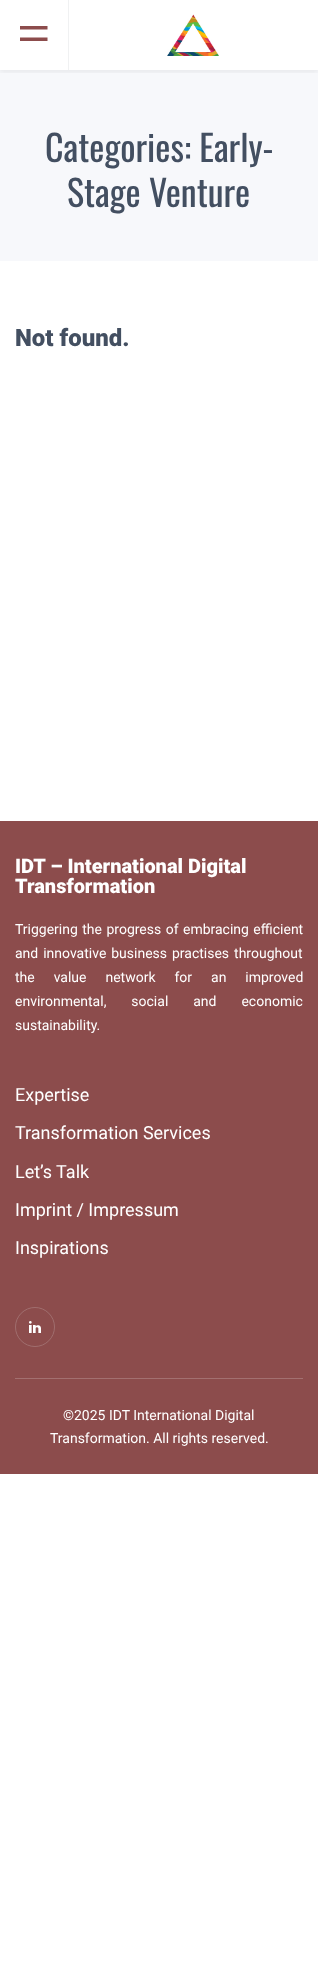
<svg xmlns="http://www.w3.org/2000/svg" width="318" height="1977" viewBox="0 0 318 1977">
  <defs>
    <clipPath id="clip1"><rect x="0" y="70" width="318" height="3"/></clipPath>
  </defs>
  <rect width="100%" height="100%" fill="rgb(255,255,255)"/>
  <rect x="0" y="70" width="318" height="191" fill="rgb(247,248,251)"/>
  <g clip-path="url(#clip1)">
    <rect x="0" y="3" width="318" height="70" fill="rgba(0,0,0,0.05)" filter="blur(2px)"/>
  </g>
  <rect x="68" y="0" width="1" height="70" fill="rgb(240,241,242)"/>
  <path d="M20 41V37.5H47.5V41ZM20 26H47.5V29.5H20Z" fill="rgb(140,76,76)"/>
  <image x="167" y="14" width="52" height="42" href="pic1.png"/>
  <g font-family="Oswald" font-size="36" fill="rgb(67,79,97)">
    <text x="45" y="162">Categories: Early-</text>
    <text x="67" y="207">Stage Venture</text>
  </g>
  <text x="15" y="346" font-family="Roboto" font-size="24" font-weight="900" fill="rgb(67,79,97)">Not found.</text>
  <rect x="0" y="821" width="318" height="653" fill="rgb(140,76,76)"/>
  <rect x="15" y="1378" width="288" height="1" fill="rgb(163,112,112)"/>
  <g font-family="Roboto" font-size="20" font-weight="900" fill="rgb(255,255,255)">
    <text>
      <tspan x="15" y="873">IDT – International Digital</tspan>
      <tspan x="15" y="893">Transformation</tspan>
    </text>
  </g>
  <g font-family="Roboto" font-size="14" fill="rgb(255,255,255)">
    <text>
      <tspan x="15" y="934" word-spacing="1">Triggering the progress of embracing efficient</tspan>
      <tspan x="15" y="958" word-spacing="1.5">and innovative business practises throughout</tspan>
      <tspan x="15" y="982" word-spacing="15.5">the value network for an improved</tspan>
      <tspan x="15" y="1006" word-spacing="21.5">environmental, social and economic</tspan>
      <tspan x="15" y="1030">sustainability.</tspan>
    </text>
  </g>
  <g font-family="Roboto" font-size="18" fill="rgb(255,255,255)">
    <text x="15" y="1101">Expertise</text>
    <text x="15" y="1139">Transformation Services</text>
    <text x="15" y="1178">Let’s Talk</text>
    <text x="15" y="1216">Imprint / Impressum</text>
    <text x="15" y="1254">Inspirations</text>
  </g>
  <circle cx="35" cy="1327" r="19.5" fill="none" stroke="rgb(160,110,110)"/>
  <image x="29" y="1321" width="12" height="12" href="pic2.png"/>
  <g font-family="Roboto" font-size="14" fill="rgb(255,255,255)">
    <text x="63" y="1420">©2025 IDT International Digital</text>
    <text x="50" y="1443">Transformation. All rights reserved.</text>
  </g>
</svg>
